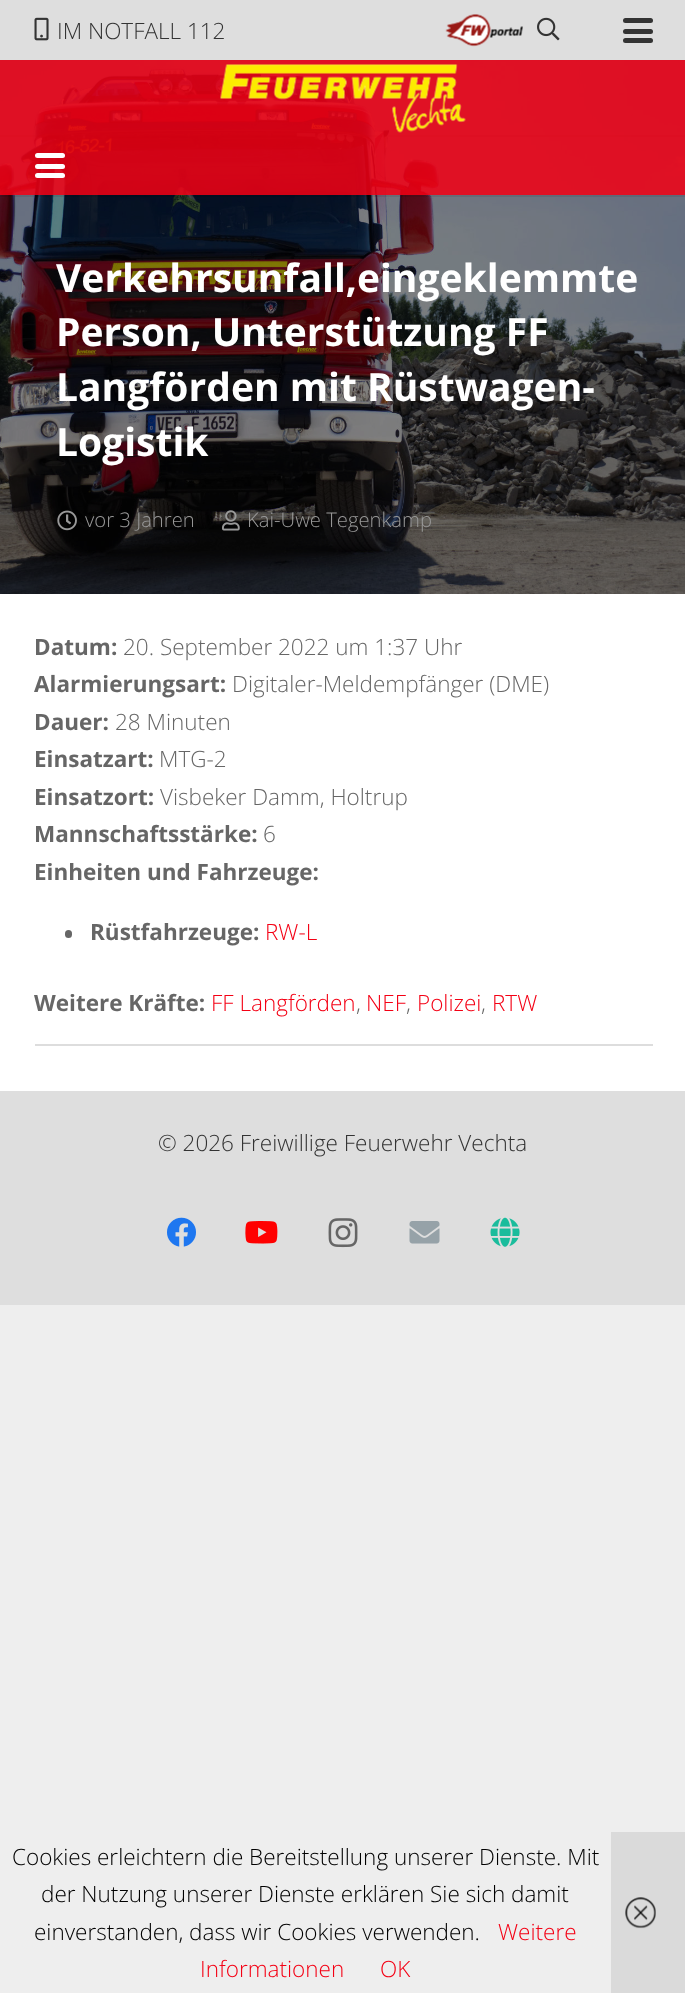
<svg xmlns="http://www.w3.org/2000/svg" width="685" height="1993" viewBox="0 0 685 1993">
  <rect width="100%" height="100%" fill="rgb(238,238,238)"/>
  <rect x="0" y="594" width="685" height="497" fill="rgb(255,255,255)"/>
  <rect x="0" y="0" width="685" height="60" fill="rgb(222,222,222)"/>
  <image x="34" y="17" width="15" height="24" href="pic1.png"/>
  <text x="57" y="39" font-family="Open Sans" font-size="22.5" font-weight="300" fill="rgb(51,51,51)">IM NOTFALL 112</text>
  <image x="445" y="14" width="78" height="33" href="pic2.png"/>
  <image x="537" y="17" width="23" height="24" href="pic3.png"/>
  <rect x="623" y="29" width="30" height="5" rx="2.5" fill="rgb(51,51,51)"/>
  <rect x="623" y="18" width="30" height="5" rx="2.5" fill="rgb(51,51,51)"/>
  <rect x="623" y="38" width="30" height="5" rx="2.5" fill="rgb(51,51,51)"/>
  <image x="0" y="60" width="685" height="534" href="pic5.png"/>
  <path d="M0 135V137H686V62V135Z" fill="rgba(0,0,0,0.08)"/>
  <rect x="0" y="60" width="685" height="75" fill="rgba(244,0,20,0.85)"/>
  <image x="220" y="64" width="246" height="69" href="pic4.png"/>
  <path d="M0 195V197H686V137V195Z" fill="rgba(0,0,0,0.08)"/>
  <rect x="0" y="135" width="685" height="60" fill="rgba(244,0,20,0.85)"/>
  <rect x="35" y="164" width="30" height="5" rx="2.5" fill="rgb(255,255,255)"/>
  <rect x="35" y="153" width="30" height="5" rx="2.5" fill="rgb(255,255,255)"/>
  <rect x="35" y="173" width="30" height="5" rx="2.5" fill="rgb(255,255,255)"/>
  <g font-family="Open Sans" font-size="39" font-weight="bold" fill="rgb(255,255,255)">
    <text>
      <tspan x="56" y="292">Verkehrsunfall,eingeklemmte</tspan>
      <tspan x="56" y="346">Person, Unterstützung FF</tspan>
      <tspan x="56" y="401">Langförden mit Rüstwagen-</tspan>
      <tspan x="56" y="456">Logistik</tspan>
    </text>
  </g>
  <image x="57" y="510" width="20" height="21" href="pic6.png"/>
  <text x="85" y="527" font-family="Open Sans" font-size="20.25" font-weight="300" fill="rgb(153,153,153)">vor 3 Jahren</text>
  <image x="222" y="510" width="18" height="21" href="pic7.png"/>
  <text x="247" y="527" font-family="Open Sans" font-size="20.25" font-weight="300" fill="rgb(153,153,153)">Kai-Uwe Tegenkamp</text>
  <text x="34" y="655" font-family="Open Sans" font-size="22.5" font-weight="bold" fill="rgb(102,102,102)">Datum:</text>
  <text x="123" y="655" font-family="Open Sans" font-size="22.5" font-weight="300" fill="rgb(102,102,102)">20. September 2022 um 1:37 Uhr</text>
  <text x="34" y="692" font-family="Open Sans" font-size="22.5" font-weight="bold" fill="rgb(102,102,102)">Alarmierungsart:</text>
  <text x="232" y="692" font-family="Open Sans" font-size="22.5" font-weight="300" fill="rgb(102,102,102)">Digitaler-Meldempfänger (DME)</text>
  <text x="34" y="730" font-family="Open Sans" font-size="22.5" font-weight="bold" fill="rgb(102,102,102)">Dauer:</text>
  <text x="115" y="730" font-family="Open Sans" font-size="22.5" font-weight="300" fill="rgb(102,102,102)">28 Minuten</text>
  <text x="34" y="767" font-family="Open Sans" font-size="22.5" font-weight="bold" fill="rgb(102,102,102)">Einsatzart:</text>
  <text x="159" y="767" font-family="Open Sans" font-size="22.5" font-weight="300" fill="rgb(102,102,102)">MTG-2</text>
  <text x="34" y="805" font-family="Open Sans" font-size="22.5" font-weight="bold" fill="rgb(102,102,102)">Einsatzort:</text>
  <text x="160" y="805" font-family="Open Sans" font-size="22.5" font-weight="300" fill="rgb(102,102,102)">Visbeker Damm, Holtrup</text>
  <text x="34" y="842" font-family="Open Sans" font-size="22.5" font-weight="bold" fill="rgb(102,102,102)">Mannschaftsstärke:</text>
  <text x="263" y="842" font-family="Open Sans" font-size="22.5" font-weight="300" fill="rgb(102,102,102)">6</text>
  <text x="34" y="880" font-family="Open Sans" font-size="22.5" font-weight="bold" fill="rgb(102,102,102)">Einheiten und Fahrzeuge:</text>
  <rect x="65" y="930" width="7" height="8" rx="3.5" fill="rgb(102,102,102)"/>
  <text x="90" y="940" font-family="Open Sans" font-size="22.5" font-weight="bold" fill="rgb(102,102,102)">Rüstfahrzeuge:</text>
  <text x="265" y="940" font-family="Open Sans" font-size="22.5" font-weight="300" fill="rgb(244,0,20)">RW-L</text>
  <text x="34" y="1011" font-family="Open Sans" font-size="22.5" font-weight="bold" fill="rgb(102,102,102)">Weitere Kräfte:</text>
  <text x="211" y="1011" font-family="Open Sans" font-size="22.5" font-weight="300" fill="rgb(244,0,20)">FF Langförden</text>
  <text x="356" y="1011" font-family="Open Sans" font-size="22.5" font-weight="300" fill="rgb(102,102,102)">,</text>
  <text x="366" y="1011" font-family="Open Sans" font-size="22.5" font-weight="300" fill="rgb(244,0,20)">NEF</text>
  <text x="406" y="1011" font-family="Open Sans" font-size="22.5" font-weight="300" fill="rgb(102,102,102)">,</text>
  <text x="417" y="1011" font-family="Open Sans" font-size="22.5" font-weight="300" fill="rgb(244,0,20)">Polizei</text>
  <text x="481" y="1011" font-family="Open Sans" font-size="22.5" font-weight="300" fill="rgb(102,102,102)">,</text>
  <text x="492" y="1011" font-family="Open Sans" font-size="22.5" font-weight="300" fill="rgb(244,0,20)">RTW</text>
  <rect x="35" y="1044" width="618" height="2" fill="rgb(221,221,221)"/>
  <rect x="0" y="1091" width="685" height="214" fill="rgb(222,222,222)"/>
  <text x="158" y="1151" font-family="Open Sans" font-size="22.5" font-weight="300" fill="rgb(51,51,51)">© 2026 Freiwillige Feuerwehr Vechta</text>
  <image x="167" y="1217" width="29" height="30" href="pic8.png"/>
  <image x="245" y="1221" width="33" height="23" href="pic9.png"/>
  <image x="328" y="1218" width="30" height="30" href="pic10.png"/>
  <image x="409" y="1221" width="31" height="23" href="pic11.png"/>
  <image x="490" y="1217" width="30" height="30" href="pic12.png"/>
  <g font-family="Open Sans" font-size="22.5" font-weight="300" fill="rgb(0,0,0)">
    <text x="12" y="1865">Cookies erleichtern die Bereitstellung unserer Dienste. Mit</text>
    <text x="41" y="1902">der Nutzung unserer Dienste erklären Sie sich damit</text>
    <text x="34" y="1940">einverstanden, dass wir Cookies verwenden.</text>
  </g>
  <g font-family="Open Sans" font-size="22.5" font-weight="300" fill="rgb(244,0,20)">
    <text x="498" y="1940">Weitere</text>
    <text x="200" y="1977">Informationen</text>
    <text x="380" y="1977">OK</text>
  </g>
  <rect x="611" y="1832" width="74" height="161" fill="rgb(218,218,218)"/>
  <image x="625" y="1897" width="31" height="32" href="pic13.png"/>
</svg>
